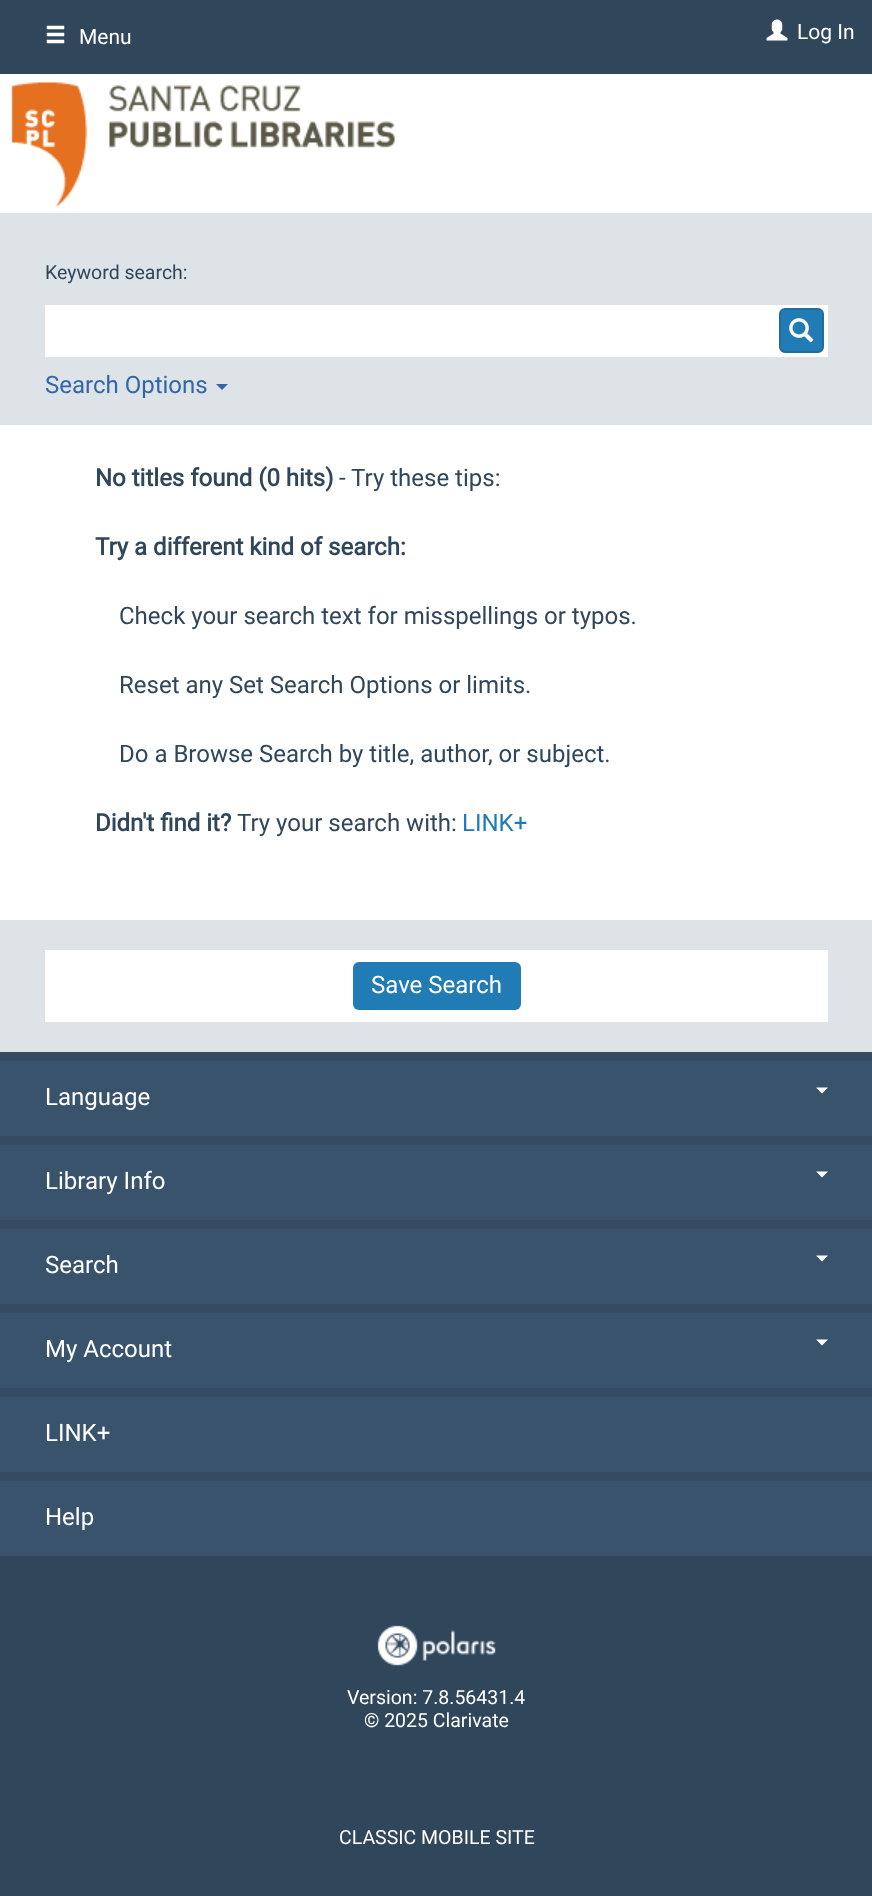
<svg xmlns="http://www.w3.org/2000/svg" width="872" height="1896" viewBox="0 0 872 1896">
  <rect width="100%" height="100%" fill="rgb(48,70,91)"/>
  <image x="46" y="25" width="19" height="19" href="pic1.png"/>
  <text x="79" y="44" font-family="Roboto" font-size="21" fill="rgb(255,255,255)">Menu</text>
  <image x="766" y="19" width="22" height="22" href="pic2.png"/>
  <text x="797" y="39" font-family="Roboto" font-size="21" fill="rgb(255,255,255)">Log In</text>
  <rect x="0" y="74" width="872" height="139" fill="rgb(255,255,255)"/>
  <image x="11" y="82" width="384" height="126" href="pic3.png"/>
  <rect x="0" y="920" width="872" height="132" fill="rgb(222,227,232)"/>
  <rect x="0" y="425" width="872" height="495" fill="rgb(255,255,255)"/>
  <rect x="0" y="213" width="872" height="212" fill="rgb(222,227,232)"/>
  <text x="45" y="279" font-family="Roboto" font-size="19.5" fill="rgb(48,70,91)">Keyword search:</text>
  <rect x="45" y="305" width="783" height="52" fill="rgb(255,255,255)"/>
  <rect x="780" y="309" width="43" height="43" rx="5" fill="rgb(33,124,181)" stroke="rgb(29,109,159)" stroke-width="2"/>
  <image x="789" y="318" width="25" height="25" href="pic4.png"/>
  <text x="45" y="393" font-family="Roboto" font-size="24" fill="rgb(49,102,170)">Search Options</text>
  <path d="M216 384H228L222 390Z" fill="rgb(49,102,170)"/>
  <text x="95" y="486" font-family="Roboto" font-size="24" font-weight="bold" fill="rgb(48,70,91)">No titles found (0 hits)</text>
  <text x="339" y="486" font-family="Roboto" font-size="24" fill="rgb(48,70,91)">- Try these tips:</text>
  <text x="95" y="555" font-family="Roboto" font-size="24" font-weight="bold" fill="rgb(48,70,91)">Try a different kind of search:</text>
  <g font-family="Roboto" font-size="24" fill="rgb(48,70,91)">
    <text x="119" y="624">Check your search text for misspellings or typos.</text>
    <text x="119" y="693">Reset any Set Search Options or limits.</text>
    <text x="119" y="762">Do a Browse Search by title, author, or subject.</text>
  </g>
  <text x="95" y="831" font-family="Roboto" font-size="24" font-weight="bold" fill="rgb(48,70,91)">Didn't find it?</text>
  <text x="237" y="831" font-family="Roboto" font-size="24" fill="rgb(48,70,91)">Try your search with:</text>
  <text x="462" y="831" font-family="Roboto" font-size="24" fill="rgb(33,124,181)">LINK+</text>
  <rect x="45" y="950" width="783" height="72" fill="rgb(255,255,255)"/>
  <rect x="353" y="962" width="168" height="48" rx="6" fill="rgb(33,124,181)"/>
  <text x="371" y="993" font-family="Roboto" font-size="24" fill="rgb(255,255,255)">Save Search</text>
  <rect x="0" y="1052" width="872" height="429" fill="rgb(52,75,98)"/>
  <rect x="0" y="1061" width="872" height="75" fill="rgb(57,83,108)"/>
  <text x="45" y="1105" font-family="Roboto" font-size="24" fill="rgb(255,255,255)">Language</text>
  <path d="M816 1087.5H828L822 1093.5Z" fill="rgb(255,255,255)"/>
  <rect x="0" y="1145" width="872" height="75" fill="rgb(57,83,108)"/>
  <text x="45" y="1189" font-family="Roboto" font-size="24" fill="rgb(255,255,255)">Library Info</text>
  <path d="M816 1171.5H828L822 1177.5Z" fill="rgb(255,255,255)"/>
  <rect x="0" y="1229" width="872" height="75" fill="rgb(57,83,108)"/>
  <text x="45" y="1273" font-family="Roboto" font-size="24" fill="rgb(255,255,255)">Search</text>
  <path d="M816 1255.5H828L822 1261.5Z" fill="rgb(255,255,255)"/>
  <rect x="0" y="1313" width="872" height="75" fill="rgb(57,83,108)"/>
  <text x="45" y="1357" font-family="Roboto" font-size="24" fill="rgb(255,255,255)">My Account</text>
  <path d="M816 1339.5H828L822 1345.5Z" fill="rgb(255,255,255)"/>
  <rect x="0" y="1397" width="872" height="75" fill="rgb(57,83,108)"/>
  <text x="45" y="1441" font-family="Roboto" font-size="24" fill="rgb(255,255,255)">LINK+</text>
  <rect x="0" y="1481" width="872" height="75" fill="rgb(57,83,108)"/>
  <text x="45" y="1525" font-family="Roboto" font-size="24" fill="rgb(255,255,255)">Help</text>
  <image x="377" y="1625" width="119" height="41" href="pic5.png"/>
  <g font-family="Roboto" font-size="19.5" fill="rgb(255,255,255)">
    <text x="347" y="1704">Version: 7.8.56431.4</text>
    <text x="364" y="1727">© 2025 Clarivate</text>
    <text x="339" y="1844">CLASSIC MOBILE SITE</text>
  </g>
</svg>
